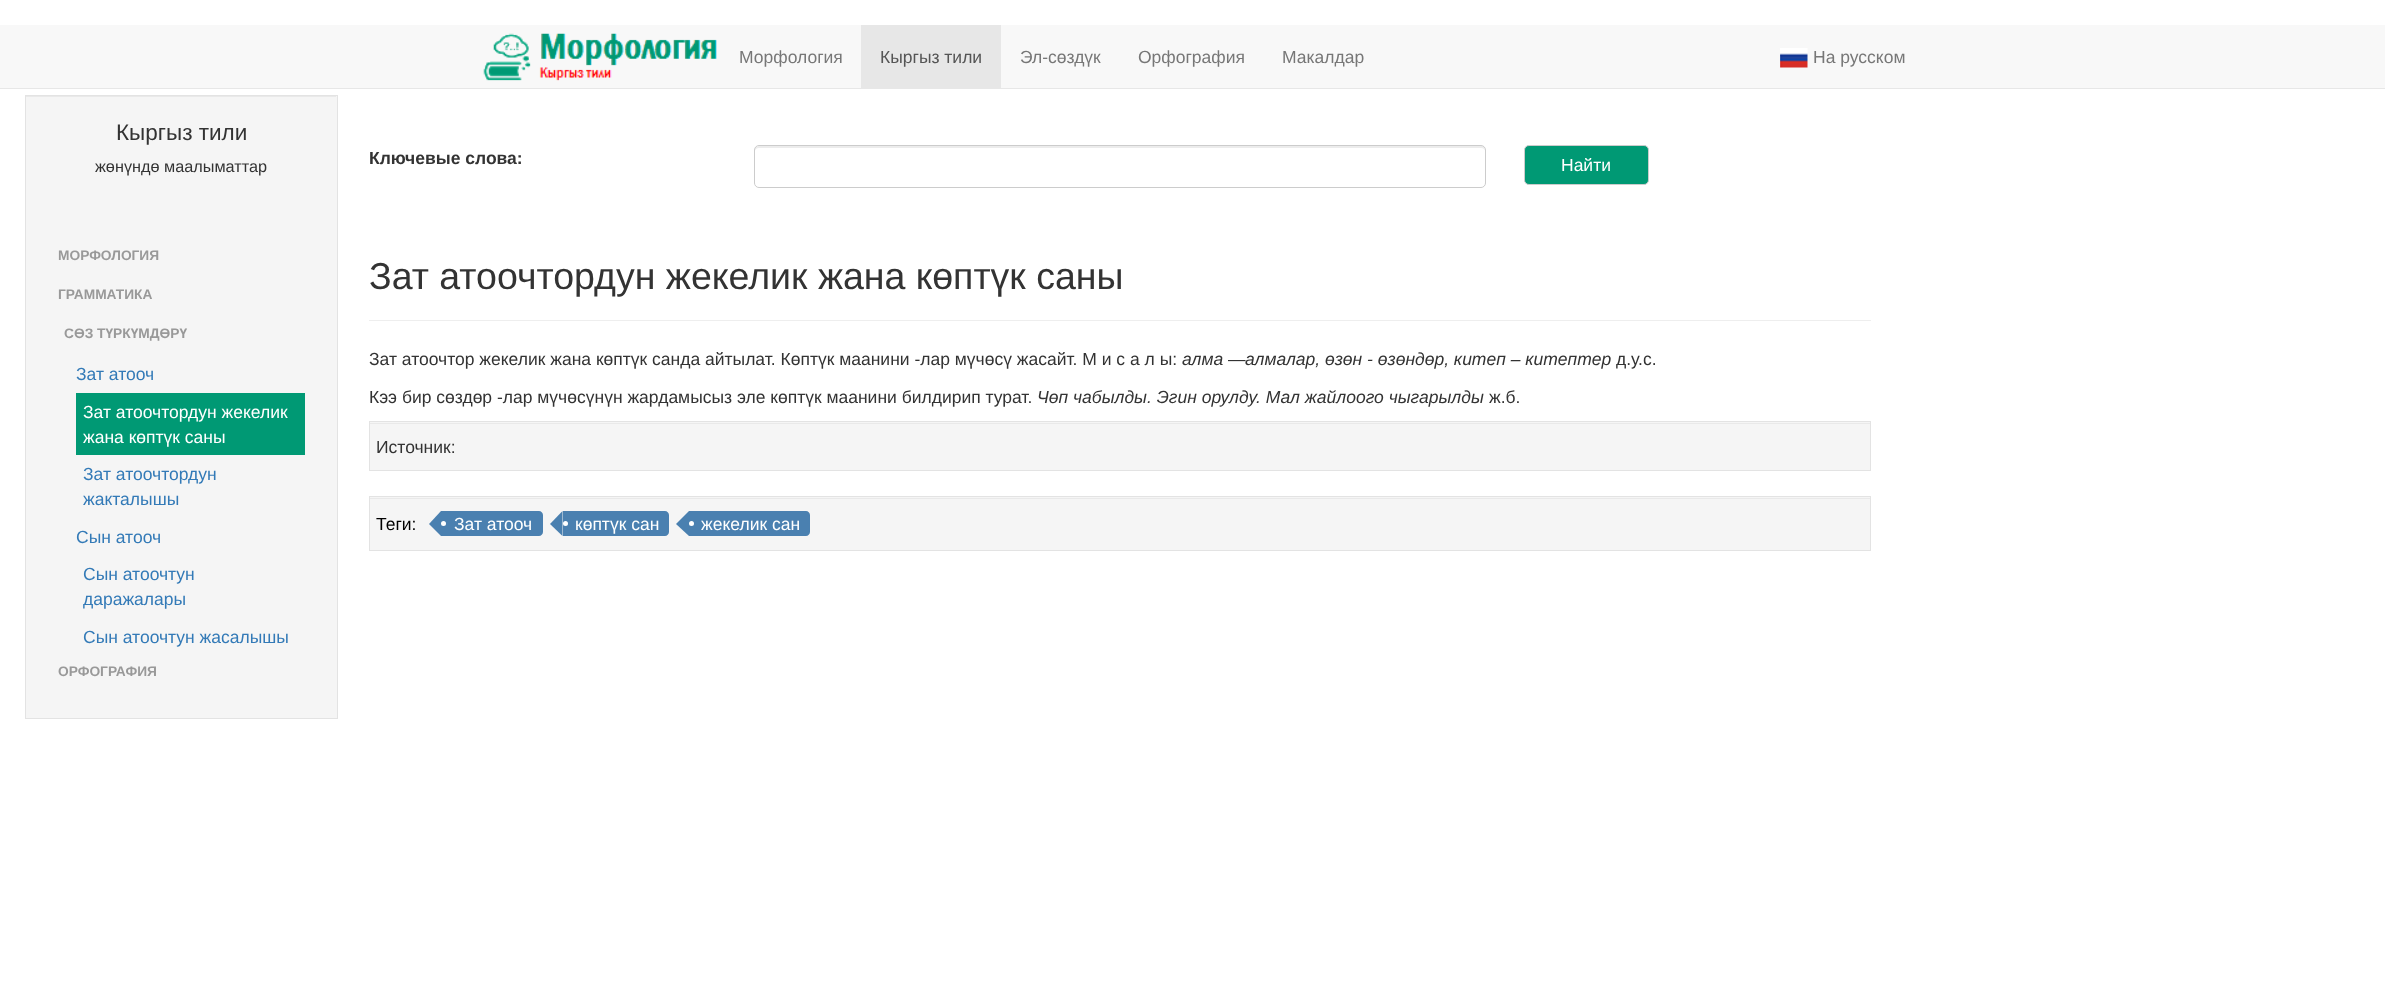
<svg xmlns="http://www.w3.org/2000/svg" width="2385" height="996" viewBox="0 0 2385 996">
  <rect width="100%" height="100%" fill="rgb(255,255,255)"/>
  <rect x="0" y="25" width="2385" height="63" fill="rgb(248,248,248)"/>
  <rect x="0" y="88" width="2385" height="1" fill="rgb(231,231,231)"/>
  <image x="483" y="33" width="234" height="48" href="pic1.png"/>
  <text x="739" y="63" font-family="Liberation Sans" font-size="17.5" fill="rgb(119,119,119)">Морфология</text>
  <rect x="861" y="25" width="140" height="63" fill="rgb(231,231,231)"/>
  <text x="880" y="63" font-family="Liberation Sans" font-size="17.5" fill="rgb(85,85,85)">Кыргыз тили</text>
  <g font-family="Liberation Sans" font-size="17.5" fill="rgb(119,119,119)">
    <text x="1020" y="63">Эл-сөздүк</text>
    <text x="1138" y="63">Орфография</text>
    <text x="1282" y="63">Макалдар</text>
  </g>
  <image x="1780" y="48" width="28" height="20" href="pic2.png"/>
  <text x="1813" y="63" font-family="Liberation Sans" font-size="17.5" fill="rgb(119,119,119)">На русском</text>
  <rect x="26" y="96" width="311" height="622" fill="rgb(245,245,245)"/>
  <rect x="26" y="96" width="310" height="1" fill="rgb(233,233,233)"/>
  <rect x="25.5" y="95.5" width="312" height="623" fill="none" stroke="rgb(227,227,227)"/>
  <text x="116" y="140" font-family="Liberation Sans" font-size="22.5" fill="rgb(51,51,51)">Кыргыз тили</text>
  <text x="95" y="172" font-family="Liberation Sans" font-size="16.25" fill="rgb(51,51,51)">жөнүндө маалыматтар</text>
  <g font-family="Liberation Sans" font-size="13.75" font-weight="bold" fill="rgb(153,153,153)">
    <text x="58" y="260">МОРФОЛОГИЯ</text>
    <text x="58" y="299">ГРАММАТИКА</text>
    <text x="64" y="338">СӨЗ ТҮРКҮМДӨРҮ</text>
  </g>
  <text x="76" y="380" font-family="Liberation Sans" font-size="17.5" fill="rgb(51,122,183)">Зат атооч</text>
  <rect x="76" y="393" width="229" height="62" fill="rgb(0,153,116)"/>
  <g font-family="Liberation Sans" font-size="17.5" fill="rgb(255,255,255)">
    <text>
      <tspan x="83" y="418">Зат атоочтордун жекелик</tspan>
      <tspan x="83" y="443">жана көптүк саны</tspan>
    </text>
  </g>
  <g font-family="Liberation Sans" font-size="17.5" fill="rgb(51,122,183)">
    <text>
      <tspan x="83" y="480">Зат атоочтордун</tspan>
      <tspan x="83" y="505">жакталышы</tspan>
    </text>
    <text x="76" y="543">Сын атооч</text>
    <text>
      <tspan x="83" y="580">Сын атоочтун</tspan>
      <tspan x="83" y="605">даражалары</tspan>
    </text>
    <text x="83" y="643">Сын атоочтун жасалышы</text>
  </g>
  <text x="58" y="676" font-family="Liberation Sans" font-size="13.75" font-weight="bold" fill="rgb(153,153,153)">ОРФОГРАФИЯ</text>
  <text x="369" y="164" font-family="Liberation Sans" font-size="17.5" font-weight="bold" fill="rgb(51,51,51)">Ключевые слова:</text>
  <path d="M759 148H1481C1483 148 1485 149 1485 151C1485 148 1484 146 1481 146H759L756 147L755 148V151C755 149 757 148 759 148Z" fill="rgb(236,236,236)"/>
  <rect x="754.5" y="145.5" width="731" height="42" rx="4.5" fill="none" stroke="rgb(204,204,204)"/>
  <rect x="1524.5" y="145.5" width="124" height="39" rx="4.5" fill="rgb(0,153,116)" stroke="rgb(204,204,204)"/>
  <text x="1561" y="171" font-family="Liberation Sans" font-size="17.5" fill="rgb(255,255,255)">Найти</text>
  <rect x="369" y="320" width="1502" height="1" fill="rgb(238,238,238)"/>
  <text x="369" y="289" font-family="Liberation Sans" font-size="37.5" fill="rgb(51,51,51)">Зат атоочтордун жекелик жана көптүк саны</text>
  <text x="369" y="365" font-family="Liberation Sans" font-size="17.5" fill="rgb(51,51,51)">Зат атоочтор жекелик жана көптүк санда айтылат. Көптүк маанини -лар мүчөсү жасайт. М и с а л ы:</text>
  <text x="1182" y="365" font-family="Liberation Sans" font-size="17.5" font-style="italic" fill="rgb(51,51,51)">алма</text>
  <text x="1228" y="365" font-family="Liberation Sans" font-size="17.5" fill="rgb(51,51,51)">—</text>
  <text x="1245" y="365" font-family="Liberation Sans" font-size="17.5" font-style="italic" fill="rgb(51,51,51)">алмалар, өзөн - өзөндөр, китеп – китептер</text>
  <g font-family="Liberation Sans" font-size="17.5" fill="rgb(51,51,51)">
    <text x="1616" y="365">д.у.с.</text>
    <text x="369" y="403">Кээ бир сөздөр -лар мүчөсүнүн жардамысыз эле көптүк маанини билдирип турат.</text>
  </g>
  <text x="1037" y="403" font-family="Liberation Sans" font-size="17.5" font-style="italic" fill="rgb(51,51,51)">Чөп чабылды. Эгин орулду. Мал жайлоого чыгарылды</text>
  <text x="1489" y="403" font-family="Liberation Sans" font-size="17.5" fill="rgb(51,51,51)">ж.б.</text>
  <rect x="370" y="422" width="1500" height="48" fill="rgb(245,245,245)"/>
  <rect x="370" y="423" width="1500" height="1" fill="rgb(233,233,233)"/>
  <rect x="369.5" y="421.5" width="1501" height="49" fill="none" stroke="rgb(227,227,227)"/>
  <text x="376" y="453" font-family="Liberation Sans" font-size="17.5" fill="rgb(51,51,51)">Источник:</text>
  <rect x="370" y="497" width="1500" height="53" fill="rgb(245,245,245)"/>
  <rect x="370" y="498" width="1500" height="1" fill="rgb(233,233,233)"/>
  <rect x="369.5" y="496.5" width="1501" height="54" fill="none" stroke="rgb(227,227,227)"/>
  <text x="376" y="530" font-family="Liberation Sans" font-size="17.5" fill="rgb(0,0,0)">Теги:</text>
  <path d="M441 511H539C541 511 543 513 543 515V532C543 534 541 536 539 536H441Z" fill="rgb(74,128,176)"/>
  <path d="M441 511V536L429 524Z" fill="rgb(74,128,176)"/>
  <circle cx="443.5" cy="523.5" r="2.5" fill="rgb(255,255,255)"/>
  <text x="454" y="530" font-family="Liberation Sans" font-size="17.5" fill="rgb(255,255,255)">Зат атооч</text>
  <path d="M563 511H665C667 511 669 513 669 515V532C669 534 667 536 665 536H563Z" fill="rgb(74,128,176)"/>
  <path d="M562.5 511V536L550 524Z" fill="rgb(74,128,176)"/>
  <circle cx="565.5" cy="523.5" r="2.5" fill="rgb(255,255,255)"/>
  <text x="575" y="530" font-family="Liberation Sans" font-size="17.5" fill="rgb(255,255,255)">көптүк сан</text>
  <path d="M689 511H806C808 511 810 513 810 515V532C810 534 808 536 806 536H689Z" fill="rgb(74,128,176)"/>
  <path d="M689 511V536L676 524Z" fill="rgb(74,128,176)"/>
  <circle cx="691.5" cy="523.5" r="2.5" fill="rgb(255,255,255)"/>
  <text x="701" y="530" font-family="Liberation Sans" font-size="17.5" fill="rgb(255,255,255)">жекелик сан</text>
</svg>
